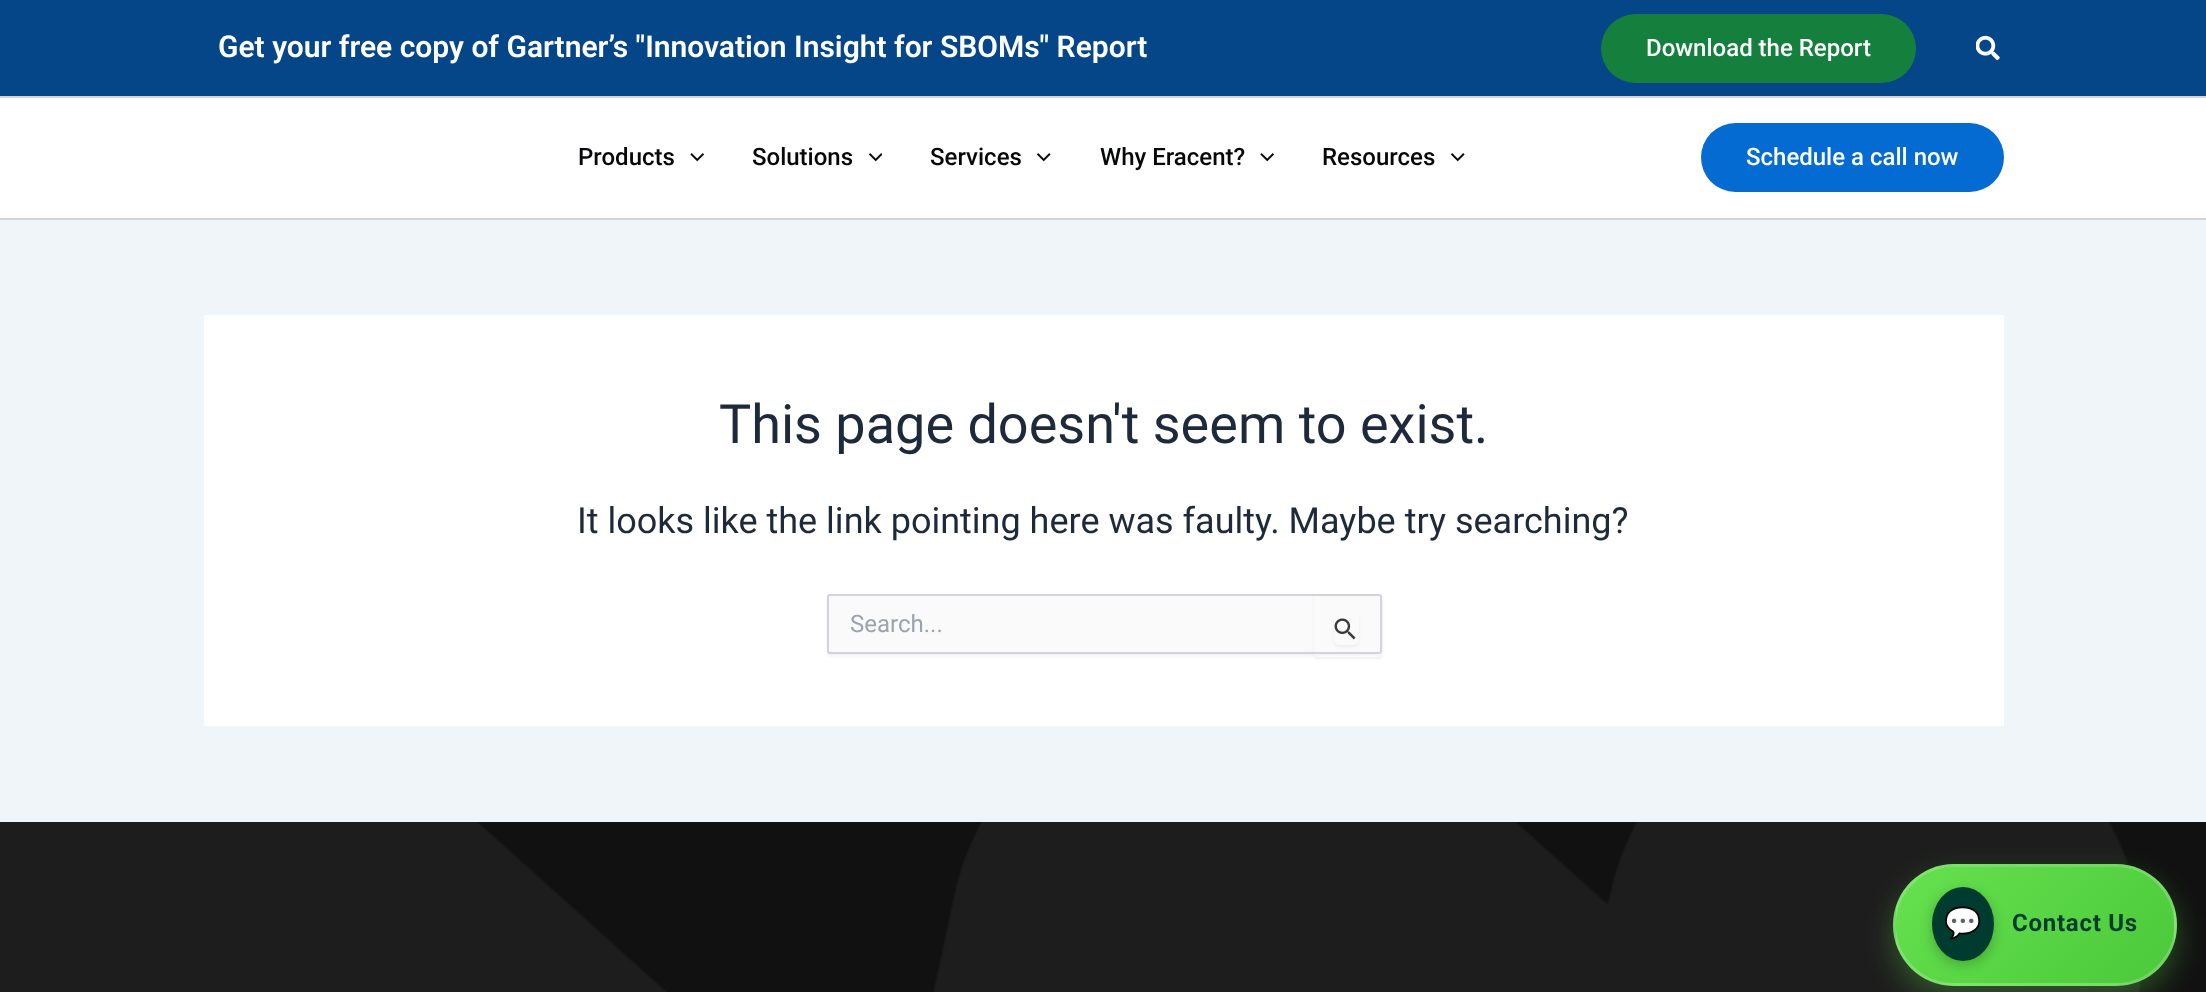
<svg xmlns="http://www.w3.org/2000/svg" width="2206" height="992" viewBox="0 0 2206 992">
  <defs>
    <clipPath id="clip1"><path d="M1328 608H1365V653H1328ZM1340 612H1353C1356.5 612 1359 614.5 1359 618V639C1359 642.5 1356.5 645 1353 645H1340C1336.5 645 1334 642.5 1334 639V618C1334 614.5 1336.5 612 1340 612Z" clip-rule="evenodd"/></clipPath>
    <clipPath id="clip2"><path d="M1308 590H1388V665H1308ZM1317 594H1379C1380.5 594 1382 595.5 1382 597V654C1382 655.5 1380.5 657 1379 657H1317C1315.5 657 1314 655.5 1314 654V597C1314 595.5 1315.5 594 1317 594Z" clip-rule="evenodd"/></clipPath>
    <clipPath id="clip3"><rect x="1893" y="864" width="284" height="122" rx="61"/></clipPath>
    <linearGradient id="g1" gradientUnits="userSpaceOnUse" x1="1937" y1="710" x2="2133" y2="907"><stop offset="0" stop-color="rgb(102,225,79)"/><stop offset="1" stop-color="rgb(75,201,58)"/></linearGradient>
    <linearGradient id="g2" gradientUnits="userSpaceOnUse" x1="1659" y1="826" x2="1856" y2="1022"><stop offset="0" stop-color="rgb(102,225,79)"/><stop offset="1" stop-color="rgb(75,201,58)"/></linearGradient>
    <linearGradient id="g3" gradientUnits="userSpaceOnUse" x1="1937" y1="826" x2="2133" y2="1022"><stop offset="0" stop-color="rgb(102,225,79)"/><stop offset="1" stop-color="rgb(75,201,58)"/></linearGradient>
    <linearGradient id="g4" gradientUnits="userSpaceOnUse" x1="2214" y1="826" x2="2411" y2="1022"><stop offset="0" stop-color="rgb(102,225,79)"/><stop offset="1" stop-color="rgb(75,201,58)"/></linearGradient>
    <linearGradient id="g5" gradientUnits="userSpaceOnUse" x1="1937" y1="941" x2="2133" y2="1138"><stop offset="0" stop-color="rgb(102,225,79)"/><stop offset="1" stop-color="rgb(75,201,58)"/></linearGradient>
  </defs>
  <rect width="100%" height="100%" fill="rgb(240,245,250)"/>
  <rect x="0" y="0" width="2206" height="96" fill="rgb(4,70,135)"/>
  <rect x="0" y="96" width="2206" height="2" fill="rgb(209,213,219)"/>
  <text x="218" y="57" font-family="Roboto" font-size="30" font-weight="600" fill="rgb(255,255,255)">Get your free copy of Gartner’s "Innovation Insight for SBOMs" Report</text>
  <rect x="1601" y="14" width="315" height="69" rx="34.5" fill="rgb(21,128,61)"/>
  <text x="1646" y="56" font-family="Roboto" font-size="24" font-weight="500" fill="rgb(255,255,255)">Download the Report</text>
  <image x="1976" y="35" width="24" height="26" href="pic1.png"/>
  <rect x="0" y="98" width="2206" height="120" fill="rgb(255,255,255)"/>
  <rect x="0" y="218" width="2206" height="2" fill="rgb(209,213,219)"/>
  <text x="578" y="165" font-family="Roboto" font-size="24" font-weight="500" fill="rgb(7,8,10)">Products</text>
  <image x="690" y="153" width="14" height="9" href="pic2.png"/>
  <text x="752" y="165" font-family="Roboto" font-size="24" font-weight="500" fill="rgb(7,8,10)">Solutions</text>
  <image x="869" y="153" width="13" height="9" href="pic3.png"/>
  <text x="930" y="165" font-family="Roboto" font-size="24" font-weight="500" fill="rgb(7,8,10)">Services</text>
  <image x="1037" y="153" width="14" height="9" href="pic4.png"/>
  <text x="1100" y="165" font-family="Roboto" font-size="24" font-weight="500" fill="rgb(7,8,10)">Why Eracent?</text>
  <image x="1260" y="153" width="14" height="9" href="pic2.png"/>
  <text x="1322" y="165" font-family="Roboto" font-size="24" font-weight="500" fill="rgb(7,8,10)">Resources</text>
  <image x="1451" y="153" width="14" height="9" href="pic4.png"/>
  <rect x="1701" y="123" width="303" height="69" rx="34.5" fill="rgb(4,107,210)"/>
  <text x="1746" y="165" font-family="Roboto" font-size="24" font-weight="500" fill="rgb(255,255,255)">Schedule a call now</text>
  <rect x="204" y="315" width="1800" height="411" fill="rgb(255,255,255)"/>
  <text x="719" y="443" font-family="Roboto" font-size="54" fill="rgb(30,41,59)">This page doesn't seem to exist.</text>
  <text x="577" y="533" font-family="Roboto" font-size="36" fill="rgb(30,41,59)">It looks like the link pointing here was faulty. Maybe try searching?</text>
  <rect x="827" y="596" width="555" height="60" rx="3" fill="rgba(0,0,0,0.05)" filter="blur(1.5px)"/>
  <rect x="828" y="595" width="553" height="58" rx="2" fill="rgb(250,250,250)" stroke="rgb(209,213,219)" stroke-width="2"/>
  <text x="850" y="632" font-family="Roboto" font-size="24" fill="rgb(156,163,175)">Search...</text>
  <g clip-path="url(#clip1)">
    <rect x="1334" y="614" width="25" height="33" rx="6" fill="rgba(0,0,0,0.05)" filter="blur(1.5px)"/>
  </g>
  <image x="1334" y="618" width="22" height="22" href="pic5.png"/>
  <g clip-path="url(#clip2)">
    <rect x="1314" y="596" width="68" height="63" rx="3" fill="rgba(0,0,0,0.05)" filter="blur(1.5px)"/>
  </g>
  <rect x="476" y="822" width="1730" height="170" fill="rgb(17,17,17)"/>
  <image x="0" y="822" width="2142" height="170" href="pic6.png"/>
  <rect x="1893" y="876" width="284" height="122" rx="61" fill="rgba(102,225,79,0.3)" filter="blur(15px)"/>
  <g clip-path="url(#clip3)">
    <rect x="1935" y="864" width="200" height="3" fill="url(#g1)"/>
    <rect x="1893" y="906" width="3" height="38" fill="url(#g2)"/>
    <rect x="1896" y="867" width="278" height="116" fill="url(#g3)"/>
    <rect x="2174" y="906" width="3" height="38" fill="url(#g4)"/>
    <rect x="1935" y="983" width="200" height="3" fill="url(#g5)"/>
  </g>
  <rect x="1894.5" y="865.5" width="281" height="119" rx="59.5" fill="none" stroke="rgba(255,255,255,0.2)" stroke-width="3"/>
  <rect x="1932" y="891" width="62" height="74" rx="31" fill="rgba(0,0,0,0.2)" filter="blur(6px)"/>
  <ellipse cx="1963" cy="924" rx="31" ry="37" fill="rgb(0,59,47)"/>
  <text x="1944" y="933" font-family="Noto Color Emoji" font-size="30" font-weight="bold" fill="rgb(102,225,79)">💬</text>
  <text x="2012" y="931" font-family="Roboto" font-size="24" font-weight="bold" letter-spacing="0.75" fill="rgb(0,59,47)">Contact Us</text>
</svg>
